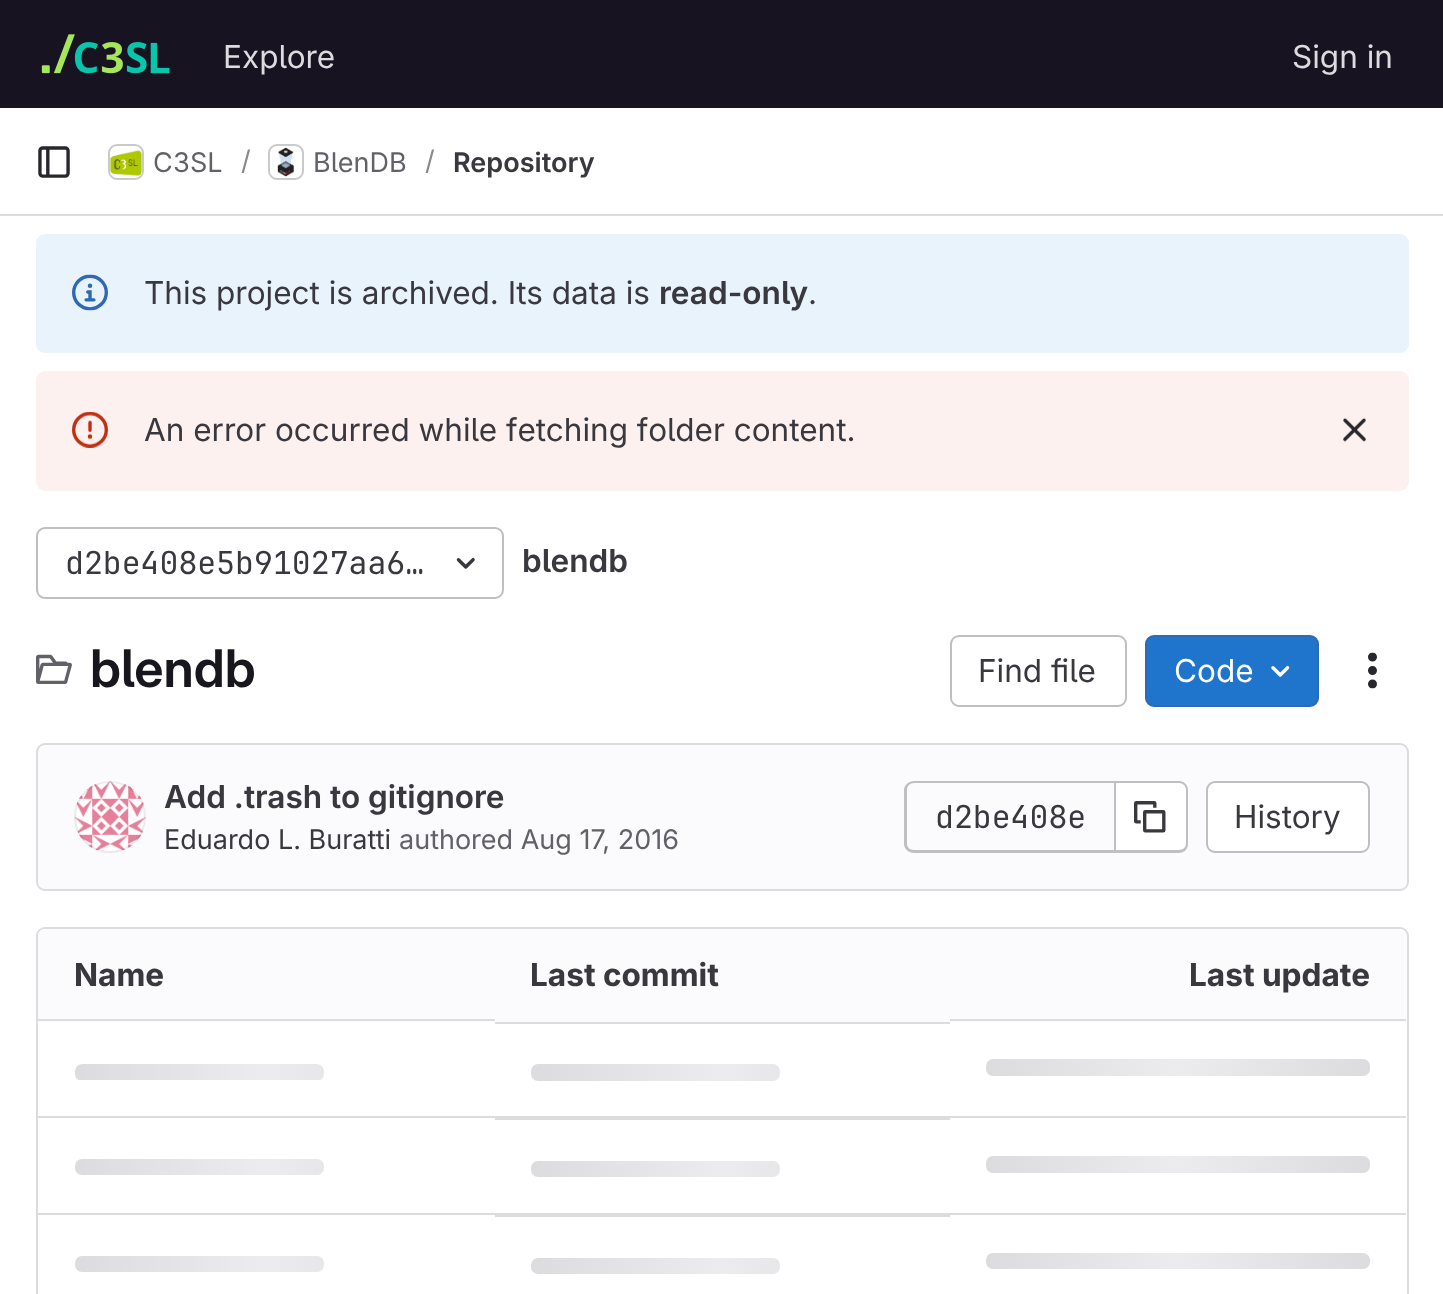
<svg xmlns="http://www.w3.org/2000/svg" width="1443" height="1294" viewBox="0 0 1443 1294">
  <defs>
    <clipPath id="clip1"><rect x="75" y="1064" width="249" height="17" rx="7"/></clipPath>
    <linearGradient id="g1" gradientUnits="userSpaceOnUse" x1="75" y1="1064" x2="458" y2="1064"><stop offset="0" stop-color="rgb(220,220,222)"/><stop offset="0.5" stop-color="rgb(236,236,239)"/><stop offset="1" stop-color="rgb(220,220,222)"/></linearGradient>
    <linearGradient id="g2" gradientUnits="userSpaceOnUse" x1="531" y1="1064" x2="915" y2="1064"><stop offset="0" stop-color="rgb(220,220,222)"/><stop offset="0.5" stop-color="rgb(236,236,239)"/><stop offset="1" stop-color="rgb(220,220,222)"/></linearGradient>
    <linearGradient id="g3" gradientUnits="userSpaceOnUse" x1="986" y1="1059" x2="1370" y2="1059"><stop offset="0" stop-color="rgb(220,220,222)"/><stop offset="0.5" stop-color="rgb(236,236,239)"/><stop offset="1" stop-color="rgb(220,220,222)"/></linearGradient>
    <linearGradient id="g4" gradientUnits="userSpaceOnUse" x1="75" y1="1159" x2="458" y2="1159"><stop offset="0" stop-color="rgb(220,220,222)"/><stop offset="0.5" stop-color="rgb(236,236,239)"/><stop offset="1" stop-color="rgb(220,220,222)"/></linearGradient>
    <linearGradient id="g5" gradientUnits="userSpaceOnUse" x1="531" y1="1161" x2="915" y2="1161"><stop offset="0" stop-color="rgb(220,220,222)"/><stop offset="0.5" stop-color="rgb(236,236,239)"/><stop offset="1" stop-color="rgb(220,220,222)"/></linearGradient>
    <linearGradient id="g6" gradientUnits="userSpaceOnUse" x1="986" y1="1156" x2="1370" y2="1156"><stop offset="0" stop-color="rgb(220,220,222)"/><stop offset="0.5" stop-color="rgb(236,236,239)"/><stop offset="1" stop-color="rgb(220,220,222)"/></linearGradient>
    <linearGradient id="g7" gradientUnits="userSpaceOnUse" x1="75" y1="1256" x2="458" y2="1256"><stop offset="0" stop-color="rgb(220,220,222)"/><stop offset="0.5" stop-color="rgb(236,236,239)"/><stop offset="1" stop-color="rgb(220,220,222)"/></linearGradient>
    <linearGradient id="g8" gradientUnits="userSpaceOnUse" x1="531" y1="1258" x2="915" y2="1258"><stop offset="0" stop-color="rgb(220,220,222)"/><stop offset="0.5" stop-color="rgb(236,236,239)"/><stop offset="1" stop-color="rgb(220,220,222)"/></linearGradient>
    <linearGradient id="g9" gradientUnits="userSpaceOnUse" x1="986" y1="1253" x2="1370" y2="1253"><stop offset="0" stop-color="rgb(220,220,222)"/><stop offset="0.5" stop-color="rgb(236,236,239)"/><stop offset="1" stop-color="rgb(220,220,222)"/></linearGradient>
  </defs>
  <rect width="100%" height="100%" fill="rgb(255,255,255)"/>
  <rect x="0" y="0" width="1443" height="108" fill="rgb(23,19,33)"/>
  <image x="41" y="34" width="129" height="40" href="pic1.png"/>
  <g font-family="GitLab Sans" font-size="31.5" fill="rgb(220,220,222)">
    <text x="223" y="68">Explore</text>
    <text x="1292" y="68">Sign in</text>
  </g>
  <rect x="0" y="214" width="1443" height="2" fill="rgb(220,220,222)"/>
  <image x="38" y="146" width="32" height="32" href="pic2.png"/>
  <rect x="109" y="145" width="34" height="34" rx="8" fill="none" stroke="rgb(220,220,222)" stroke-width="2"/>
  <image x="110" y="150" width="32" height="26" href="pic3.png"/>
  <rect x="109" y="145" width="34" height="34" rx="8" fill="none" stroke="rgba(5,5,6,0.08)" stroke-width="2"/>
  <text x="153" y="172" font-family="GitLab Sans" font-size="27" fill="rgb(98,97,104)">C3SL</text>
  <text x="241" y="170" font-family="GitLab Sans" font-size="27" fill="rgb(137,136,141)">/</text>
  <rect x="269" y="145" width="34" height="34" rx="8" fill="none" stroke="rgb(220,220,222)" stroke-width="2"/>
  <image x="277" y="147" width="18" height="30" href="pic4.png"/>
  <rect x="269" y="145" width="34" height="34" rx="8" fill="none" stroke="rgba(5,5,6,0.08)" stroke-width="2"/>
  <text x="313" y="172" font-family="GitLab Sans" font-size="27" fill="rgb(98,97,104)">BlenDB</text>
  <text x="425" y="170" font-family="GitLab Sans" font-size="27" fill="rgb(137,136,141)">/</text>
  <text x="453" y="172" font-family="'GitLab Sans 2'" font-size="27" font-weight="600" fill="rgb(58,56,63)">Repository</text>
  <rect x="36" y="234" width="1373" height="119" rx="9" fill="rgb(233,243,252)"/>
  <image x="72" y="274" width="36" height="37" href="pic5.png"/>
  <text x="144" y="304" font-family="GitLab Sans" font-size="31.5" fill="rgb(58,56,63)">This project is archived. Its data is</text>
  <text x="659" y="304" font-family="'GitLab Sans 2'" font-size="31.5" font-weight="600" fill="rgb(58,56,63)">read-only</text>
  <text x="808" y="304" font-family="GitLab Sans" font-size="31.5" fill="rgb(58,56,63)">.</text>
  <rect x="36" y="371" width="1373" height="120" rx="9" fill="rgb(252,241,239)"/>
  <image x="72" y="412" width="36" height="36" href="pic6.png"/>
  <text x="144" y="441" font-family="GitLab Sans" font-size="31.5" fill="rgb(58,56,63)">An error occurred while fetching folder content.</text>
  <image x="1343" y="418" width="23" height="24" href="pic7.png"/>
  <rect x="37" y="528" width="466" height="70" rx="8" fill="none" stroke="rgb(191,191,195)" stroke-width="2"/>
  <text x="65" y="574" font-family="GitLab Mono" font-size="31.5" fill="rgb(58,56,63)">d2be408e5b91027aa6…</text>
  <image x="456" y="557" width="19" height="12" href="pic8.png"/>
  <text x="522" y="572" font-family="'GitLab Sans 2'" font-size="31.5" font-weight="600" fill="rgb(58,56,63)">blendb</text>
  <image x="36" y="654" width="36" height="30" href="pic9.png"/>
  <text x="90" y="687" font-family="GitLab Sans" font-size="52" font-weight="600" fill="rgb(24,23,29)">blendb</text>
  <rect x="951" y="636" width="175" height="70" rx="8" fill="none" stroke="rgb(191,191,195)" stroke-width="2"/>
  <text x="978" y="682" font-family="GitLab Sans" font-size="31.5" fill="rgb(58,56,63)">Find file</text>
  <rect x="1146" y="636" width="172" height="70" rx="8" fill="rgb(31,117,203)" stroke="rgb(47,104,180)" stroke-width="2"/>
  <text x="1174" y="682" font-family="GitLab Sans" font-size="31.5" fill="rgb(255,255,255)">Code</text>
  <image x="1271" y="665" width="19" height="12" href="pic10.png"/>
  <image x="1368" y="652" width="9" height="37" href="pic11.png"/>
  <rect x="37" y="744" width="1371" height="146" rx="8" fill="rgb(251,250,253)" stroke="rgb(220,220,222)" stroke-width="2"/>
  <image x="74" y="781" width="72" height="71" href="pic12.png"/>
  <circle cx="110" cy="817" r="35" fill="none" stroke="rgba(5,5,6,0.08)" stroke-width="2"/>
  <text x="164" y="808" font-family="'GitLab Sans 2'" font-size="31.5" font-weight="600" fill="rgb(58,56,63)">Add .trash to gitignore</text>
  <text x="164" y="849" font-family="GitLab Sans" font-size="27" fill="rgb(58,56,63)">Eduardo L. Buratti</text>
  <text x="399" y="849" font-family="GitLab Sans" font-size="27" fill="rgb(98,97,104)">authored Aug 17, 2016</text>
  <path d="M914 781H1114V853H914C909 853 904 849 904 844V790C904 785 909 781 914 781ZM914 783H1114V850H914C910 850 907 847 907 844V790C907 786 910 783 914 783Z" fill="rgb(191,191,195)" fill-rule="evenodd"/>
  <text x="935" y="828" font-family="GitLab Mono" font-size="31.5" fill="rgb(58,56,63)">d2be408e</text>
  <path d="M1116 783H1179C1183 783 1186 786 1186 790V844C1186 848 1183 851 1179 851H1116Z" fill="rgb(255,255,255)"/>
  <path d="M1116 781H1179C1184 781 1188 785 1188 790V844C1188 849 1184 853 1179 853H1116ZM1116 783H1179C1183 783 1186 786 1186 790V844C1186 847 1183 850 1179 850H1116Z" fill="rgb(191,191,195)" fill-rule="evenodd"/>
  <rect x="1114" y="781" width="2" height="72" fill="rgb(191,191,195)"/>
  <image x="1134" y="801" width="32" height="32" href="pic13.png"/>
  <rect x="1207" y="782" width="162" height="70" rx="8" fill="rgb(255,255,255)" stroke="rgb(191,191,195)" stroke-width="2"/>
  <text x="1234" y="828" font-family="GitLab Sans" font-size="31.5" fill="rgb(58,56,63)">History</text>
  <rect x="37" y="928" width="1371" height="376" rx="8" fill="none" stroke="rgb(220,220,222)" stroke-width="2"/>
  <path d="M45 929H495V1022H38V936C38 932 41 929 45 929Z" fill="rgb(251,250,253)"/>
  <text x="74" y="986" font-family="GitLab Sans" font-size="31.5" font-weight="bold" fill="rgb(58,56,63)">Name</text>
  <rect x="495" y="929" width="455" height="93" fill="rgb(251,250,253)"/>
  <text x="530" y="986" font-family="GitLab Sans" font-size="31.5" font-weight="bold" fill="rgb(58,56,63)">Last commit</text>
  <path d="M950 929H1399C1403 929 1406 932 1406 936V1022H950Z" fill="rgb(251,250,253)"/>
  <text x="1189" y="986" font-family="GitLab Sans" font-size="31.5" font-weight="bold" fill="rgb(58,56,63)">Last update</text>
  <rect x="38" y="1116" width="1368" height="2" fill="rgb(220,220,222)"/>
  <rect x="38" y="1019" width="457" height="2" fill="rgb(220,220,222)"/>
  <g clip-path="url(#clip1)">
    <path d="M82 1064H317C321 1064 324 1067 324 1071V1080H75V1071C75 1067 78 1064 82 1064Z" fill="url(#g1)"/>
  </g>
  <rect x="495" y="1022" width="455" height="2" fill="rgb(220,220,222)"/>
  <rect x="531" y="1064" width="249" height="17" rx="7" fill="url(#g2)"/>
  <rect x="950" y="1019" width="456" height="2" fill="rgb(220,220,222)"/>
  <rect x="986" y="1059" width="384" height="17" rx="7" fill="url(#g3)"/>
  <rect x="38" y="1213" width="1368" height="2" fill="rgb(220,220,222)"/>
  <rect x="75" y="1159" width="249" height="16" rx="7" fill="url(#g4)"/>
  <rect x="495" y="1118" width="455" height="2" fill="rgb(220,220,222)"/>
  <rect x="531" y="1161" width="249" height="16" rx="7" fill="url(#g5)"/>
  <rect x="986" y="1156" width="384" height="17" rx="7" fill="url(#g6)"/>
  <rect x="75" y="1256" width="249" height="16" rx="7" fill="url(#g7)"/>
  <rect x="495" y="1215" width="455" height="2" fill="rgb(220,220,222)"/>
  <rect x="531" y="1258" width="249" height="16" rx="7" fill="url(#g8)"/>
  <rect x="986" y="1253" width="384" height="16" rx="7" fill="url(#g9)"/>
</svg>
